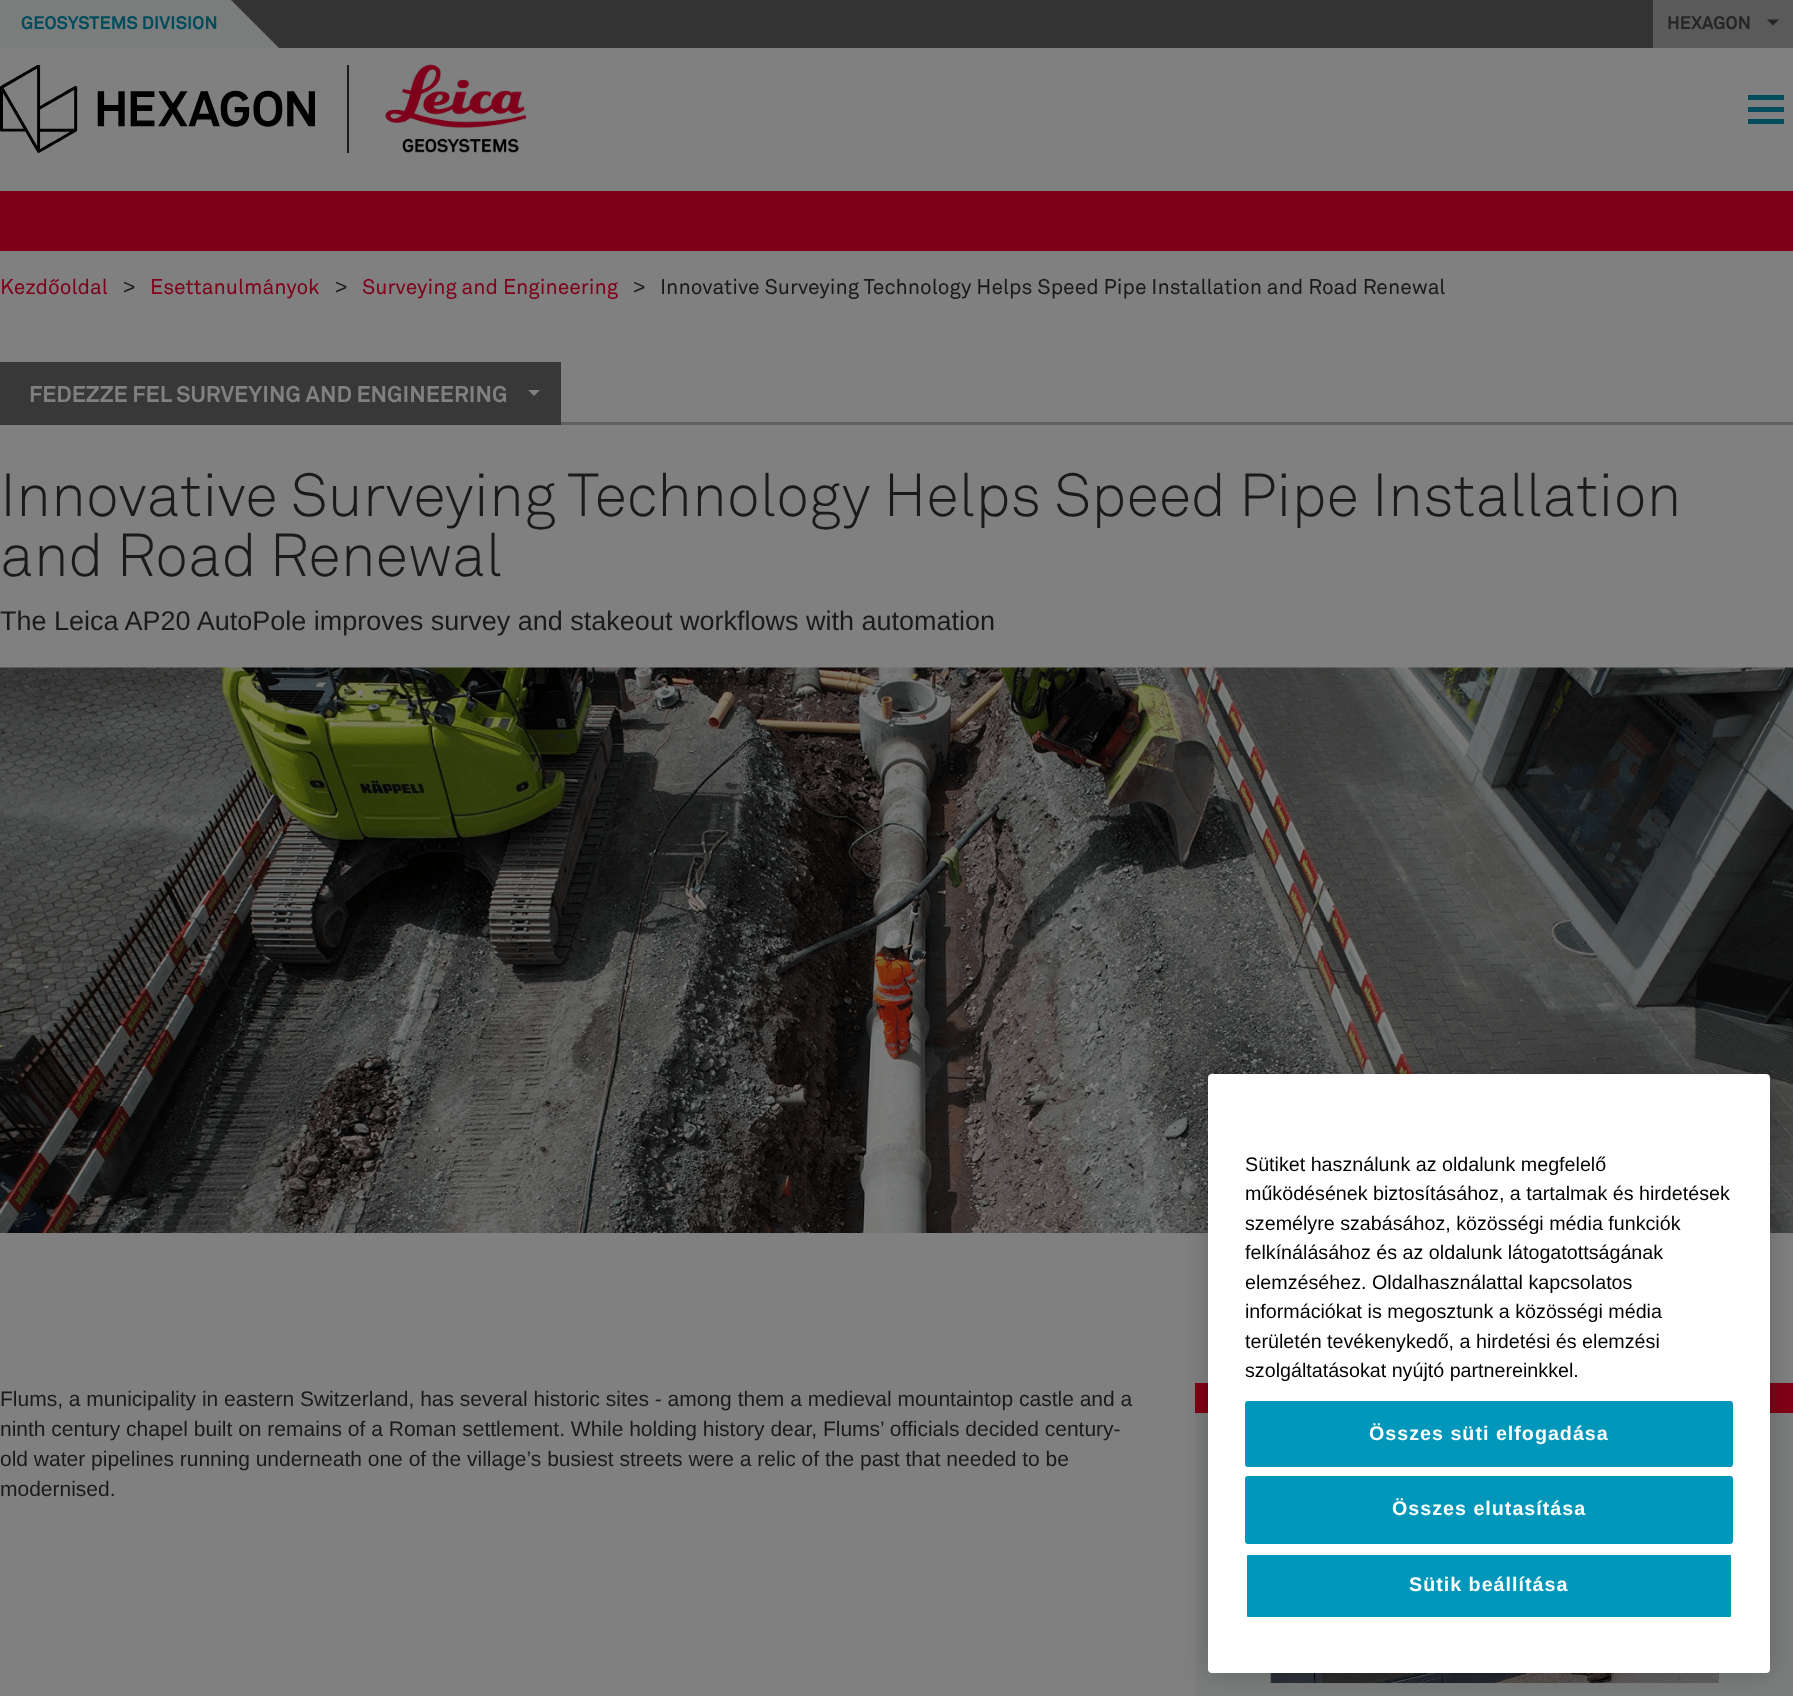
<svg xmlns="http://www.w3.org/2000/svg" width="1793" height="1696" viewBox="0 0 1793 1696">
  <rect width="100%" height="100%" fill="rgb(128,128,128)"/>
  <rect x="231" y="0" width="1422" height="48" fill="rgb(51,51,51)"/>
  <rect x="0" y="0" width="231" height="48" fill="rgb(123,124,124)"/>
  <text x="21" y="29" font-family="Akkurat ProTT" font-size="18" font-weight="bold" fill="rgb(0,76,93)">GEOSYSTEMS DIVISION</text>
  <path d="M279 48H231V0Z" fill="rgb(123,124,124)"/>
  <rect x="1653" y="0" width="140" height="48" fill="rgb(90,90,90)"/>
  <text x="1667" y="29" font-family="Akkurat ProTT" font-size="18" font-weight="bold" fill="rgb(37,37,37)">HEXAGON</text>
  <path d="M1767 19.5H1779L1773 25.5Z" fill="rgb(37,37,37)"/>
  <rect x="347" y="65" width="2" height="88" fill="rgb(26,26,26)"/>
  <image x="0" y="65" width="315" height="88" href="pic1.png"/>
  <image x="385" y="64" width="142" height="89" href="pic2.png"/>
  <rect x="1748" y="95" width="36" height="5" fill="rgb(0,76,93)"/>
  <rect x="1748" y="107" width="36" height="5" fill="rgb(0,76,93)"/>
  <rect x="1748" y="119" width="36" height="5" fill="rgb(0,76,93)"/>
  <rect x="0" y="191" width="1793" height="60" fill="rgb(128,0,26)"/>
  <text x="0" y="294" font-family="Akkurat ProTT" font-size="21" fill="rgb(128,0,26)">Kezdőoldal</text>
  <text x="123" y="294" font-family="Liberation Sans" font-size="21" fill="rgb(26,26,26)">&gt;</text>
  <text x="150" y="294" font-family="Akkurat ProTT" font-size="21" fill="rgb(128,0,26)">Esettanulmányok</text>
  <text x="335" y="294" font-family="Liberation Sans" font-size="21" fill="rgb(26,26,26)">&gt;</text>
  <text x="362" y="294" font-family="Akkurat ProTT" font-size="21" fill="rgb(128,0,26)">Surveying and Engineering</text>
  <text x="633" y="294" font-family="Liberation Sans" font-size="21" fill="rgb(26,26,26)">&gt;</text>
  <text x="660" y="294" font-family="Akkurat ProTT" font-size="21" fill="rgb(26,26,26)">Innovative Surveying Technology Helps Speed Pipe Installation and Road Renewal</text>
  <rect x="0" y="362" width="561" height="63" fill="rgb(56,56,56)"/>
  <text x="29" y="402" font-family="Akkurat ProTT" font-size="22.5" font-weight="bold" fill="rgb(128,128,128)">FEDEZZE FEL SURVEYING AND ENGINEERING</text>
  <path d="M528 390H540L534 396Z" fill="rgb(128,128,128)"/>
  <rect x="561" y="422" width="1232" height="3" fill="rgb(97,97,97)"/>
  <g font-family="Akkurat ProTT" font-size="60" font-weight="300" fill="rgb(26,26,26)">
    <text>
      <tspan x="0" y="516">Innovative Surveying Technology Helps Speed Pipe Installation</tspan>
      <tspan x="0" y="576">and Road Renewal</tspan>
    </text>
  </g>
  <text x="0" y="630" font-family="Liberation Sans" font-size="27" fill="rgb(26,26,26)">The Leica AP20 AutoPole improves survey and stakeout workflows with automation</text>
  <image x="0" y="667" width="1793" height="566" href="pic3.png"/>
  <g font-family="Liberation Sans" font-size="21" fill="rgb(26,26,26)">
    <text>
      <tspan x="0" y="1406">Flums, a municipality in eastern Switzerland, has several historic sites - among them a medieval mountaintop castle and a</tspan>
      <tspan x="0" y="1436">ninth century chapel built on remains of a Roman settlement. While holding history dear, Flums’ officials decided century-</tspan>
      <tspan x="0" y="1466">old water pipelines running underneath one of the village’s busiest streets were a relic of the past that needed to be</tspan>
      <tspan x="0" y="1496">modernised.</tspan>
    </text>
  </g>
  <rect x="1196" y="1413" width="597" height="283" fill="rgb(123,124,124)"/>
  <rect x="1195" y="1383" width="598" height="30" fill="rgb(128,1,21)"/>
  <image x="1270" y="1673" width="449" height="10" href="pic4.png"/>
  <rect x="1208" y="1074" width="562" height="599" rx="4" fill="rgba(0,0,0,0.2)" filter="blur(13.5px)"/>
  <rect x="1208" y="1074" width="562" height="599" rx="4" fill="rgb(255,255,255)"/>
  <g font-family="Liberation Sans" font-size="19.7" fill="rgb(0,0,0)">
    <text>
      <tspan x="1245" y="1171">Sütiket használunk az oldalunk megfelelő</tspan>
      <tspan x="1245" y="1200">működésének biztosításához, a tartalmak és hirdetések</tspan>
      <tspan x="1245" y="1230">személyre szabásához, közösségi média funkciók</tspan>
      <tspan x="1245" y="1259">felkínálásához és az oldalunk látogatottságának</tspan>
      <tspan x="1245" y="1289">elemzéséhez. Oldalhasználattal kapcsolatos</tspan>
      <tspan x="1245" y="1318">információkat is megosztunk a közösségi média</tspan>
      <tspan x="1245" y="1348">területén tevékenykedő, a hirdetési és elemzési</tspan>
      <tspan x="1245" y="1377">szolgáltatásokat nyújtó partnereinkkel.</tspan>
    </text>
  </g>
  <rect x="1246" y="1402" width="486" height="64" rx="2" fill="rgb(0,151,186)" stroke="rgb(0,151,186)" stroke-width="2"/>
  <text x="1369" y="1440" font-family="Liberation Sans" font-size="19.7" font-weight="bold" letter-spacing="1" fill="rgb(255,255,255)">Összes süti elfogadása</text>
  <rect x="1246" y="1477" width="486" height="66" rx="2" fill="rgb(0,151,186)" stroke="rgb(0,151,186)" stroke-width="2"/>
  <text x="1392" y="1515" font-family="Liberation Sans" font-size="19.7" font-weight="bold" letter-spacing="1" fill="rgb(255,255,255)">Összes elutasítása</text>
  <rect x="1246" y="1554" width="486" height="64" rx="2" fill="rgb(0,151,186)" stroke="rgb(255,255,255)" stroke-width="2"/>
  <text x="1409" y="1591" font-family="Liberation Sans" font-size="19.7" font-weight="bold" letter-spacing="1" fill="rgb(255,255,255)">Sütik beállítása</text>
</svg>
